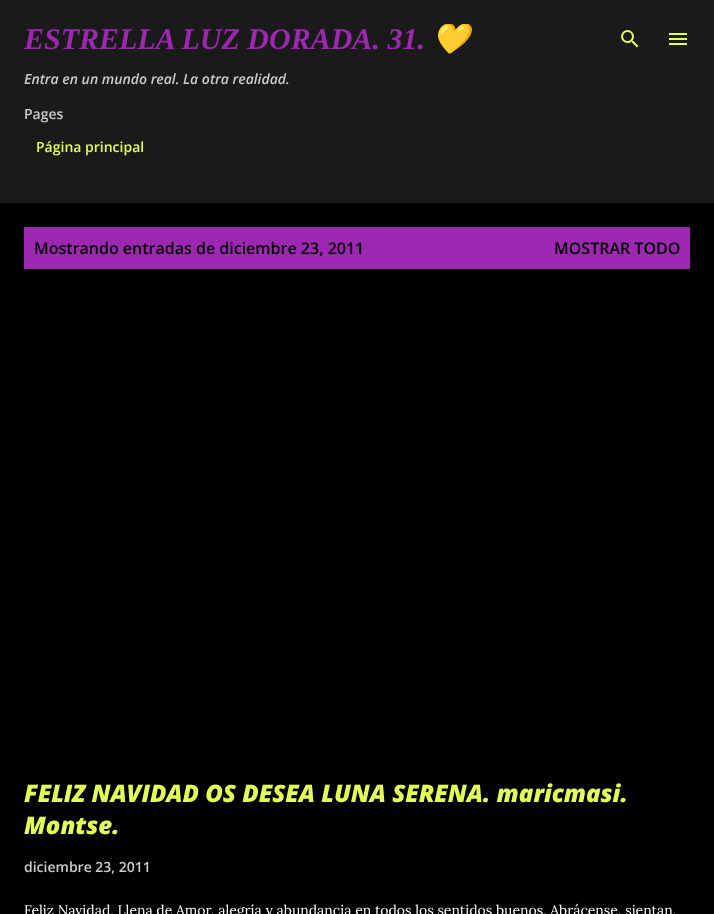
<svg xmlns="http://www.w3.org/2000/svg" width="714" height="914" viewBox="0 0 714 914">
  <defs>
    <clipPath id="clip1"><rect x="24" y="24" width="618" height="80"/></clipPath>
  </defs>
  <rect width="100%" height="100%" fill="rgb(0,0,0)"/>
  <rect x="0" y="0" width="714" height="203" fill="rgb(26,26,26)"/>
  <text x="24" y="49" font-family="Liberation Serif" font-size="30" font-weight="bold" font-style="italic" fill="rgb(156,39,176)">ESTRELLA LUZ DORADA. 31.</text>
  <g clip-path="url(#clip1)">
    <text x="432" y="49" font-family="Noto Color Emoji" font-size="30" font-weight="bold" font-style="italic" fill="rgb(156,39,176)">💛</text>
  </g>
  <text x="24" y="84" font-family="Open Sans" font-size="14" font-weight="600" font-style="italic" fill="rgb(204,204,204)">Entra en un mundo real. La otra realidad.</text>
  <image x="621" y="30" width="18" height="18" href="pic1.png"/>
  <image x="669" y="33" width="18" height="12" href="pic2.png"/>
  <text x="24" y="119" font-family="Open Sans" font-size="14" font-weight="600" fill="rgb(204,204,204)">Pages</text>
  <text x="36" y="152" font-family="Open Sans" font-size="14" font-weight="600" fill="rgb(227,255,87)">Página principal</text>
  <rect x="24" y="227" width="666" height="42" fill="rgb(156,39,176)"/>
  <g font-family="Open Sans" font-size="16" font-weight="600" fill="rgb(0,0,0)">
    <text x="34" y="254">Mostrando entradas de diciembre 23, 2011</text>
    <text x="554" y="254">MOSTRAR TODO</text>
  </g>
  <g font-family="Open Sans" font-size="24" font-weight="800" font-style="italic" fill="rgb(227,255,87)">
    <text>
      <tspan x="24" y="802">FELIZ NAVIDAD OS DESEA LUNA SERENA. maricmasi.</tspan>
      <tspan x="24" y="834">Montse.</tspan>
    </text>
  </g>
  <text x="24" y="872" font-family="Open Sans" font-size="14" font-weight="600" fill="rgb(204,204,204)">diciembre 23, 2011</text>
  <text x="24" y="915" font-family="Lora" font-size="14" fill="rgb(255,255,255)">Feliz Navidad, Llena de Amor, alegría y abundancia en todos los sentidos buenos. Abrácense, sientan,</text>
</svg>
